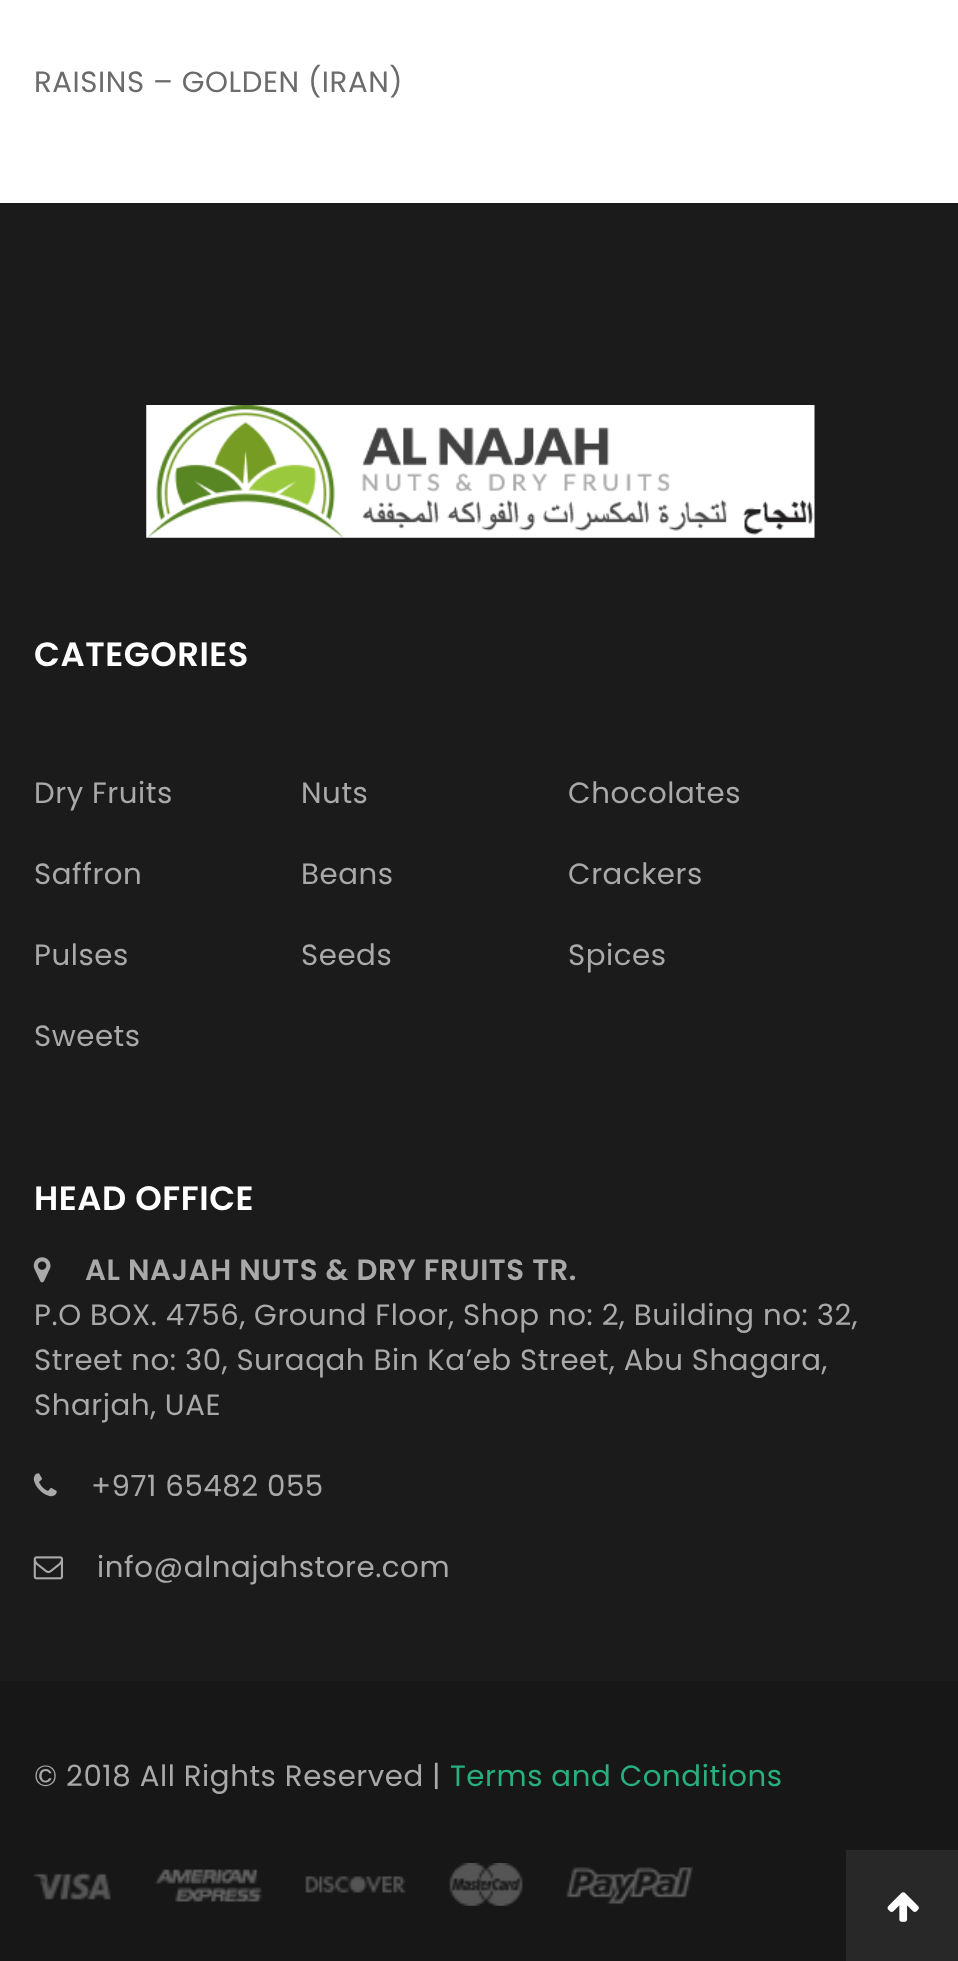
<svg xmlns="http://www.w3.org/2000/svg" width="958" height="1961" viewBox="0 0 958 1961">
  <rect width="100%" height="100%" fill="rgb(255,255,255)"/>
  <text x="34" y="92" font-family="Poppins" font-size="29.25" letter-spacing="0.55" fill="rgb(107,107,107)">RAISINS – GOLDEN (IRAN)</text>
  <rect x="0" y="203" width="958" height="1478" fill="rgb(27,27,27)"/>
  <image x="146" y="405" width="669" height="133" href="pic1.png"/>
  <text x="34" y="666" font-family="Poppins" font-size="33.75" font-weight="600" letter-spacing="0.55" fill="rgb(255,255,255)">CATEGORIES</text>
  <g font-family="Poppins" font-size="29.25" letter-spacing="0.55" fill="rgb(169,169,169)">
    <text x="34" y="803">Dry Fruits</text>
    <text x="301" y="803">Nuts</text>
    <text x="568" y="803">Chocolates</text>
    <text x="34" y="884">Saffron</text>
    <text x="301" y="884">Beans</text>
    <text x="568" y="884">Crackers</text>
    <text x="34" y="965">Pulses</text>
    <text x="301" y="965">Seeds</text>
    <text x="568" y="965">Spices</text>
    <text x="34" y="1046">Sweets</text>
  </g>
  <text x="34" y="1210" font-family="Poppins" font-size="33.75" font-weight="600" letter-spacing="0.55" fill="rgb(255,255,255)">HEAD OFFICE</text>
  <image x="33" y="1257" width="18" height="26" href="pic2.png"/>
  <text x="85" y="1280" font-family="Poppins" font-size="29.25" font-weight="600" letter-spacing="0.55" fill="rgb(169,169,169)">AL NAJAH NUTS &amp; DRY FRUITS TR.</text>
  <g font-family="Poppins" font-size="29.25" letter-spacing="0.55" fill="rgb(169,169,169)">
    <text>
      <tspan x="34" y="1325">P.O BOX. 4756, Ground Floor, Shop no: 2, Building no: 32,</tspan>
      <tspan x="34" y="1370">Street no: 30, Suraqah Bin Ka’eb Street, Abu Shagara,</tspan>
      <tspan x="34" y="1415">Sharjah, UAE</tspan>
    </text>
  </g>
  <image x="33" y="1473" width="24" height="24" href="pic3.png"/>
  <text x="91" y="1496" font-family="Poppins" font-size="29.25" letter-spacing="0.55" fill="rgb(169,169,169)">+971 65482 055</text>
  <image x="33" y="1556" width="30" height="24" href="pic4.png"/>
  <text x="97" y="1577" font-family="Poppins" font-size="29.25" letter-spacing="0.55" fill="rgb(169,169,169)">info@alnajahstore.com</text>
  <rect x="0" y="1681" width="958" height="280" fill="rgb(23,23,23)"/>
  <text x="34" y="1786" font-family="Poppins" font-size="29.25" letter-spacing="0.55" fill="rgb(169,169,169)">© 2018 All Rights Reserved |</text>
  <text x="450" y="1786" font-family="Poppins" font-size="29.25" letter-spacing="0.55" fill="rgb(39,175,125)">Terms and Conditions</text>
  <image x="33" y="1863" width="660" height="43" href="pic5.png"/>
  <rect x="846" y="1850" width="112" height="111" fill="rgb(40,40,40)"/>
  <image x="887" y="1892" width="32" height="30" href="pic6.png"/>
</svg>
